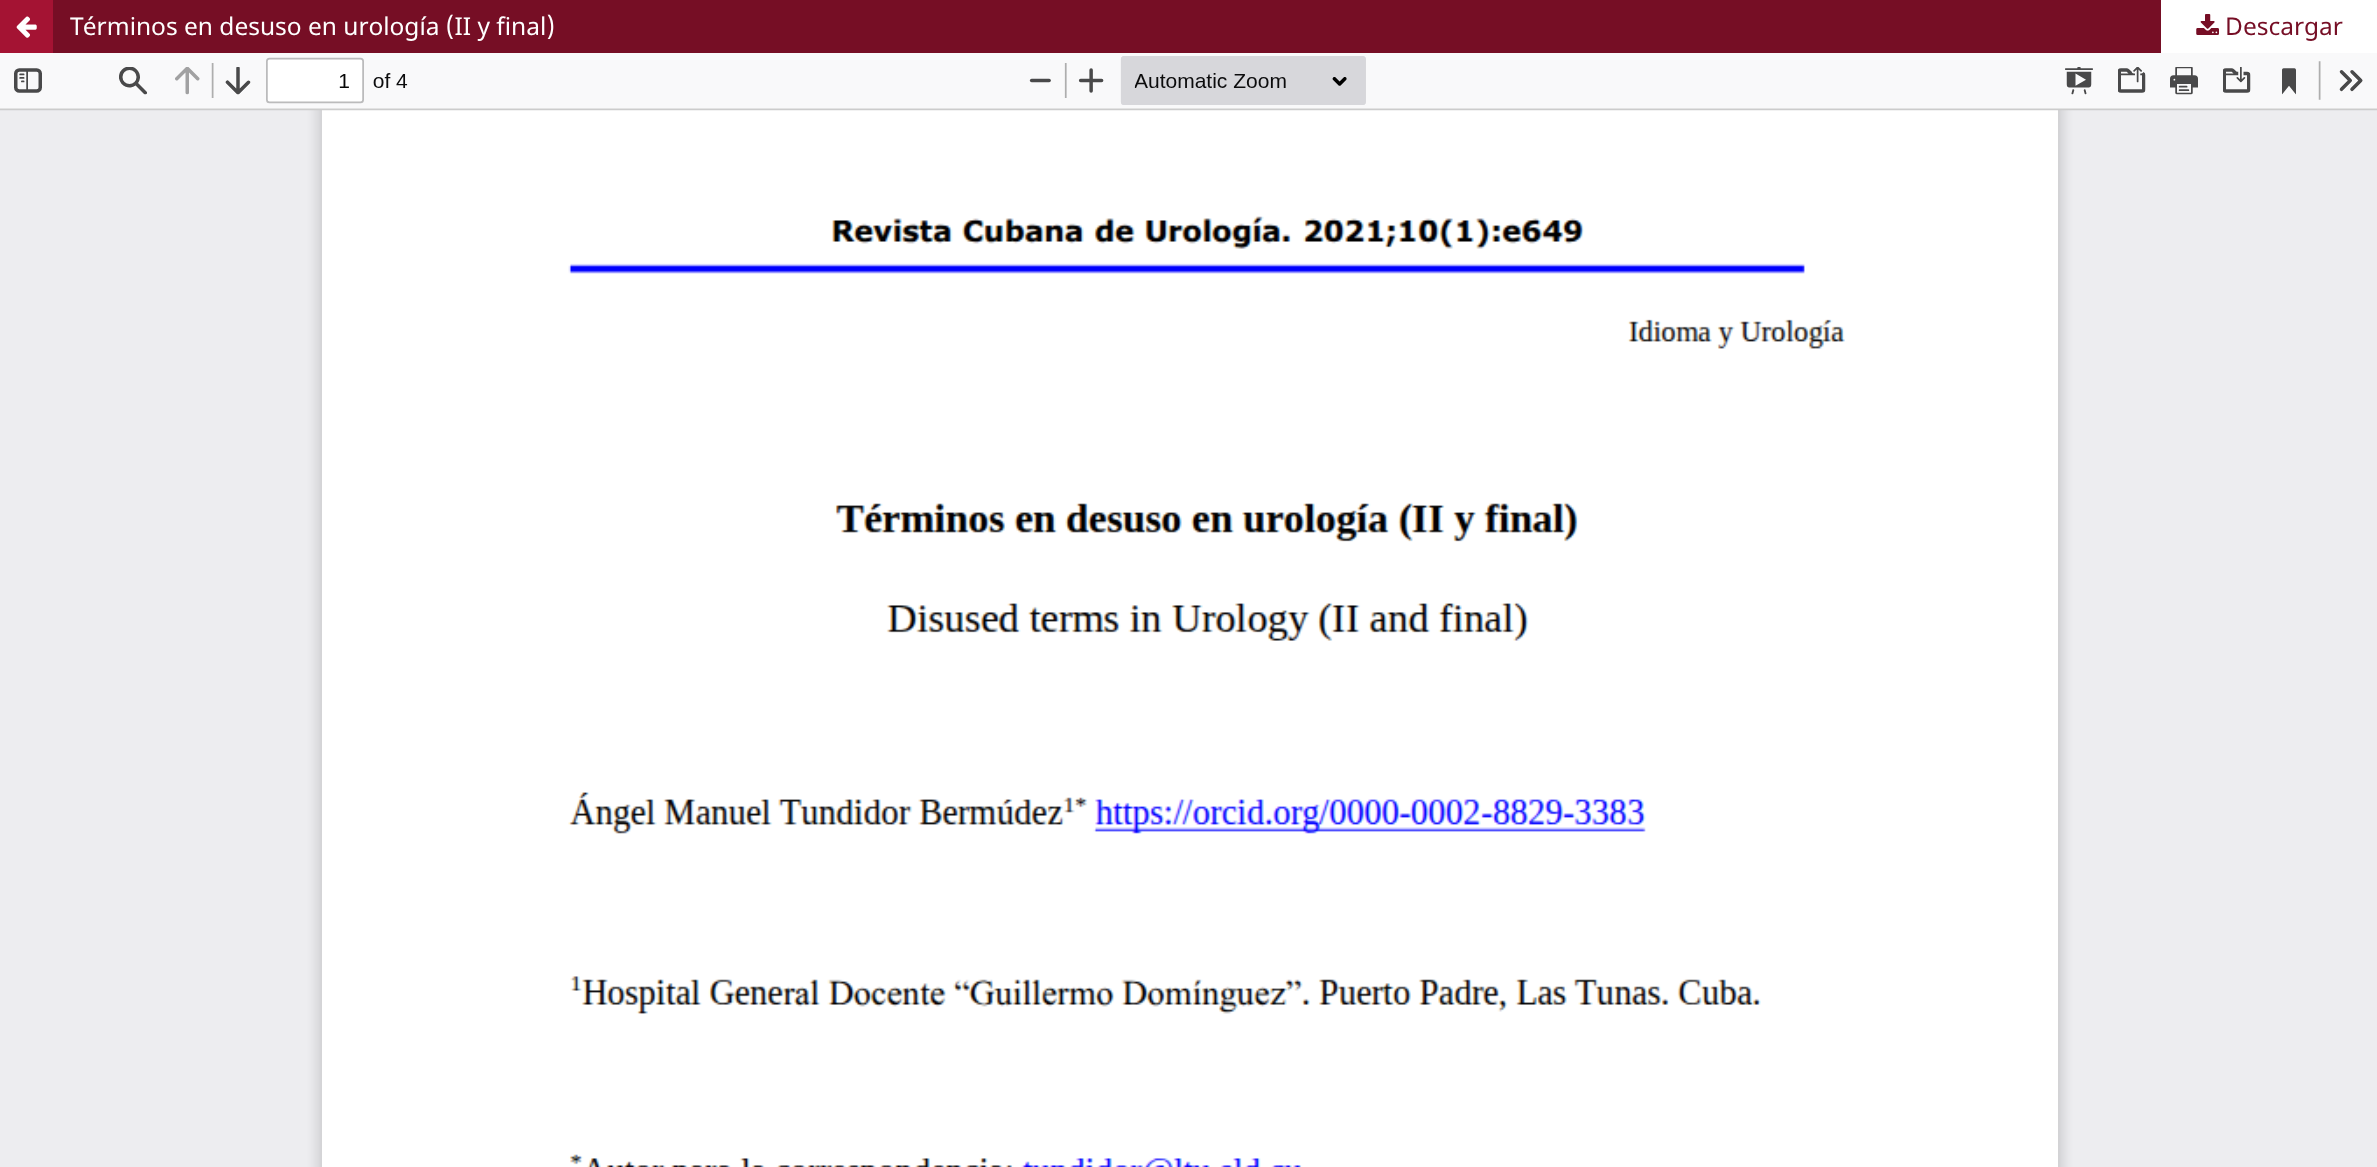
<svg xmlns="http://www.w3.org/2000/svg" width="2377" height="1167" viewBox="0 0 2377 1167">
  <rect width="100%" height="100%" fill="rgb(255,255,255)"/>
  <rect x="53" y="0" width="2108" height="53" fill="rgb(118,14,37)"/>
  <rect x="0" y="0" width="53" height="53" fill="rgb(164,19,51)"/>
  <image x="16" y="16" width="21" height="22" href="pic1.png"/>
  <text x="70" y="35" font-family="Noto Sans" font-size="24.5" fill="rgb(255,255,255)">Términos en desuso en urología (II y final)</text>
  <image x="2196" y="14" width="23" height="21" href="pic2.png"/>
  <text x="2225" y="35" font-family="Noto Sans" font-size="24.5" fill="rgb(118,14,37)">Descargar</text>
  <image x="0" y="53" width="2377" height="1114" href="pic3.png"/>
</svg>
